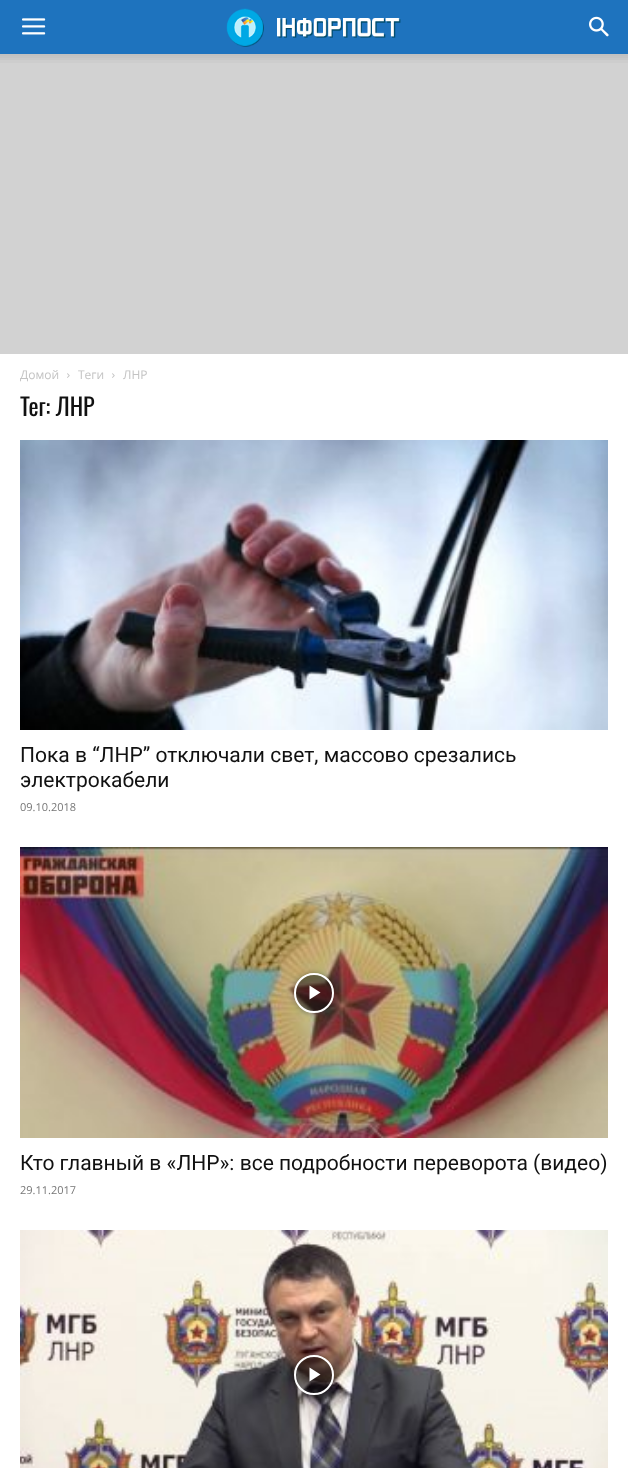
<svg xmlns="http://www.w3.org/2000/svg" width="628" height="1468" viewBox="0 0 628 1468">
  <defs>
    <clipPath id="clip1"><path d="M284 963H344V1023H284ZM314 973C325 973 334 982 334 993C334 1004 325 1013 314 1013C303 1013 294 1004 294 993C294 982 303 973 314 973Z" clip-rule="evenodd"/></clipPath>
    <clipPath id="clip2"><path d="M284 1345H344V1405H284ZM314 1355C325 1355 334 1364 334 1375C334 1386 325 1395 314 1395C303 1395 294 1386 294 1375C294 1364 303 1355 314 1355Z" clip-rule="evenodd"/></clipPath>
  </defs>
  <rect width="100%" height="100%" fill="rgb(210,210,210)"/>
  <rect x="0" y="0" width="628" height="54" fill="rgb(30,115,190)"/>
  <image x="22" y="18" width="24" height="17" href="pic1.png"/>
  <image x="226" y="8" width="175" height="39" href="pic2.png"/>
  <image x="589" y="16" width="20" height="21" href="pic3.png"/>
  <image x="0" y="54" width="628" height="9" href="pic4.png"/>
  <rect x="0" y="354" width="628" height="1114" fill="rgb(255,255,255)"/>
  <text x="20" y="379" font-family="Open Sans" font-size="12" fill="rgb(195,195,195)">Домой</text>
  <image x="67" y="373" width="3" height="5" href="pic5.png"/>
  <text x="78" y="379" font-family="Open Sans" font-size="12" fill="rgb(195,195,195)">Теги</text>
  <image x="112" y="373" width="3" height="5" href="pic5.png"/>
  <text x="123" y="379" font-family="Open Sans" font-size="12" fill="rgb(195,195,195)">ЛНР</text>
  <text x="20" y="416" font-family="Oswald" font-size="24" fill="rgb(17,17,17)">Тег: ЛНР</text>
  <image x="20" y="440" width="588" height="290" href="pic6.png"/>
  <g font-family="Roboto" font-size="21" fill="rgb(17,17,17)">
    <text>
      <tspan x="20" y="762">Пока в “ЛНР” отключали свет, массово срезались</tspan>
      <tspan x="20" y="787">электрокабели</tspan>
    </text>
  </g>
  <text x="20" y="811" font-family="Open Sans" font-size="11" fill="rgb(118,118,118)">09.10.2018</text>
  <image x="20" y="847" width="588" height="291" href="pic7.png"/>
  <g clip-path="url(#clip1)">
    <rect x="294" y="973" width="40" height="40" rx="20" fill="rgba(0,0,0,0.4)" filter="blur(3px)"/>
  </g>
  <circle cx="314" cy="993" r="19" fill="rgba(0,0,0,0.48)" stroke="rgb(255,255,255)" stroke-width="2"/>
  <path d="M309.5 985.5V999.5L320.5 992.5Z" fill="rgb(255,255,255)"/>
  <text x="20" y="1170" font-family="Roboto" font-size="21" fill="rgb(17,17,17)">Кто главный в «ЛНР»: все подробности переворота (видео)</text>
  <text x="20" y="1194" font-family="Open Sans" font-size="11" fill="rgb(118,118,118)">29.11.2017</text>
  <image x="20" y="1230" width="588" height="238" href="pic8.png"/>
  <g clip-path="url(#clip2)">
    <rect x="294" y="1355" width="40" height="40" rx="20" fill="rgba(0,0,0,0.4)" filter="blur(3px)"/>
  </g>
  <circle cx="314" cy="1375" r="19" fill="rgba(0,0,0,0.48)" stroke="rgb(255,255,255)" stroke-width="2"/>
  <path d="M309.5 1367.5V1381.5L320.5 1374.5Z" fill="rgb(255,255,255)"/>
</svg>
